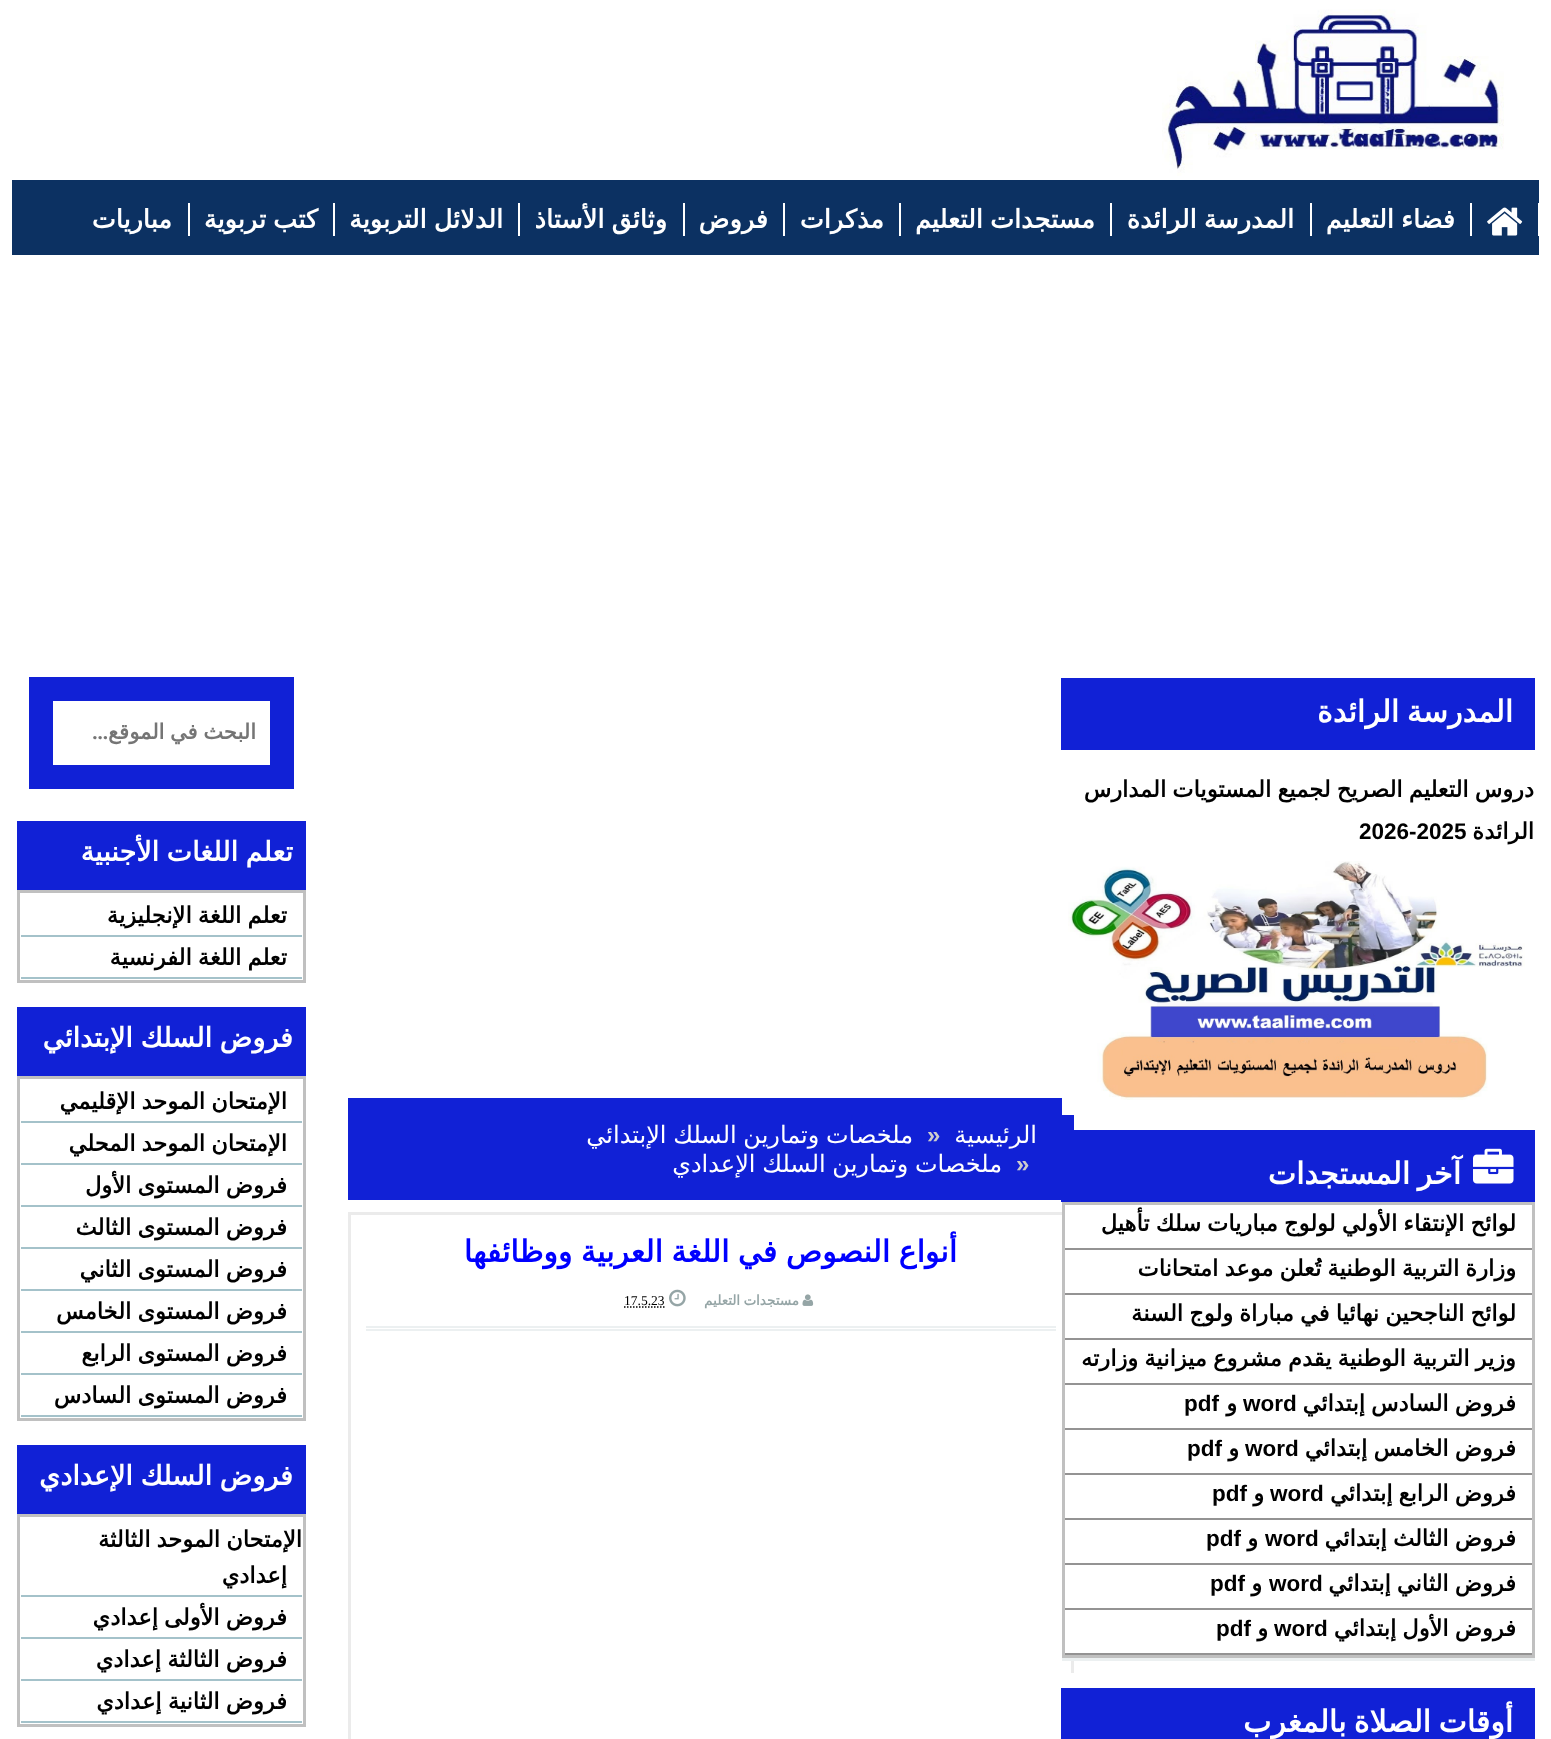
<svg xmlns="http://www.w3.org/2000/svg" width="1551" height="1739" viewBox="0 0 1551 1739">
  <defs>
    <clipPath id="clip1"><rect x="68" y="720" width="187" height="26"/></clipPath>
  </defs>
  <rect width="100%" height="100%" fill="rgb(255,255,255)"/>
  <image x="1162" y="9" width="342" height="167" href="pic1.png"/>
  <rect x="12" y="180" width="1527" height="75" fill="rgb(12,49,98)"/>
  <rect x="1538" y="203" width="1" height="33" fill="rgb(255,255,255)"/>
  <image x="1487" y="207" width="36" height="29" href="pic2.png"/>
  <rect x="1470" y="203" width="2" height="33" fill="rgb(255,255,255)"/>
  <text x="1455" y="228" word-spacing="-1" font-family="DejaVu Sans" font-size="25.5" font-weight="bold" direction="rtl" fill="rgb(255,255,255)">فضاء التعليم</text>
  <rect x="1310" y="203" width="2" height="33" fill="rgb(255,255,255)"/>
  <text x="1294" y="228" word-spacing="-1" font-family="DejaVu Sans" font-size="25.5" font-weight="bold" direction="rtl" fill="rgb(255,255,255)">المدرسة الرائدة</text>
  <rect x="1110" y="203" width="2" height="33" fill="rgb(255,255,255)"/>
  <text x="1095" y="228" word-spacing="-1" font-family="DejaVu Sans" font-size="25.5" font-weight="bold" direction="rtl" fill="rgb(255,255,255)">مستجدات التعليم</text>
  <rect x="899" y="203" width="2" height="33" fill="rgb(255,255,255)"/>
  <text x="884" y="228" font-family="DejaVu Sans" font-size="25.5" font-weight="bold" direction="rtl" fill="rgb(255,255,255)">مذكرات</text>
  <rect x="783" y="203" width="2" height="33" fill="rgb(255,255,255)"/>
  <text x="768" y="228" font-family="DejaVu Sans" font-size="25.5" font-weight="bold" direction="rtl" fill="rgb(255,255,255)">فروض</text>
  <rect x="683" y="203" width="2" height="33" fill="rgb(255,255,255)"/>
  <text x="667" y="228" word-spacing="-1" font-family="DejaVu Sans" font-size="25.5" font-weight="bold" direction="rtl" fill="rgb(255,255,255)">وثائق الأستاذ</text>
  <rect x="518" y="203" width="2" height="33" fill="rgb(255,255,255)"/>
  <text x="503" y="228" word-spacing="-1" font-family="DejaVu Sans" font-size="25.5" font-weight="bold" direction="rtl" fill="rgb(255,255,255)">الدلائل التربوية</text>
  <rect x="333" y="203" width="2" height="33" fill="rgb(255,255,255)"/>
  <text x="318" y="228" word-spacing="-1" font-family="DejaVu Sans" font-size="25.5" font-weight="bold" direction="rtl" fill="rgb(255,255,255)">كتب تربوية</text>
  <rect x="188" y="203" width="2" height="33" fill="rgb(255,255,255)"/>
  <text x="172" y="228" font-family="DejaVu Sans" font-size="25.5" font-weight="bold" direction="rtl" fill="rgb(255,255,255)">مباريات</text>
  <rect x="348" y="1098" width="726" height="102" fill="rgb(17,33,214)"/>
  <rect x="1062" y="1098" width="12" height="17" fill="rgb(255,255,255)"/>
  <rect x="1061" y="678" width="474" height="72" fill="rgb(17,33,214)"/>
  <text x="1513" y="722" word-spacing="-2" font-family="DejaVu Sans" font-size="30" font-weight="bold" direction="rtl" fill="rgb(255,255,255)">المدرسة الرائدة</text>
  <g font-family="DejaVu Sans" font-size="22.5" font-weight="bold" direction="rtl" fill="rgb(0,0,0)">
    <text>
      <tspan x="1534" y="797" word-spacing="-1">دروس التعليم الصريح لجميع المستويات المدارس</tspan>
      <tspan x="1534" y="839">الرائدة</tspan>
    </text>
  </g>
  <text x="1359" y="839" font-family="Liberation Sans" font-size="22.5" font-weight="bold" fill="rgb(0,0,0)">2026-2025</text>
  <image x="1068" y="861" width="457" height="239" href="pic3.png"/>
  <rect x="348" y="1212" width="726" height="527" fill="rgb(235,235,235)"/>
  <rect x="351" y="1215" width="720" height="524" fill="rgb(255,255,255)"/>
  <rect x="1065" y="1212" width="9" height="441" fill="rgb(255,255,255)"/>
  <rect x="1061" y="1130" width="474" height="72" fill="rgb(17,33,214)"/>
  <image x="1473" y="1148" width="41" height="36" href="pic4.png"/>
  <text x="1461" y="1184" word-spacing="-2" font-family="DejaVu Sans" font-size="30" font-weight="bold" direction="rtl" fill="rgb(255,255,255)">آخر المستجدات</text>
  <rect x="1062" y="1658" width="473" height="3" fill="rgb(236,240,241)"/>
  <rect x="1063.5" y="1203.5" width="470" height="453" fill="none" stroke="rgb(192,192,192)" stroke-width="3"/>
  <rect x="1065" y="1248" width="467" height="2" fill="rgb(148,147,147)"/>
  <g font-family="DejaVu Sans" font-size="22.5" font-weight="bold" direction="rtl" fill="rgb(0,0,0)">
    <text x="1516" y="1231" word-spacing="-1">لوائح الإنتقاء الأولي لولوج مباريات</text>
    <text x="1201" y="1231" word-spacing="-1">سلك تأهيل</text>
  </g>
  <rect x="1065" y="1293" width="467" height="2" fill="rgb(148,147,147)"/>
  <text x="1516" y="1276" word-spacing="-1" font-family="DejaVu Sans" font-size="22.5" font-weight="bold" direction="rtl" fill="rgb(0,0,0)">وزارة التربية الوطنية تُعلن موعد امتحانات</text>
  <rect x="1065" y="1338" width="467" height="2" fill="rgb(148,147,147)"/>
  <text x="1516" y="1321" word-spacing="-1" font-family="DejaVu Sans" font-size="22.5" font-weight="bold" direction="rtl" fill="rgb(0,0,0)">لوائح الناجحين نهائيا في مباراة ولوج السنة</text>
  <rect x="1065" y="1383" width="467" height="2" fill="rgb(148,147,147)"/>
  <text x="1516" y="1366" word-spacing="-1" font-family="DejaVu Sans" font-size="22.5" font-weight="bold" direction="rtl" fill="rgb(0,0,0)">وزير التربية الوطنية يقدم مشروع ميزانية وزارته</text>
  <rect x="1065" y="1428" width="467" height="2" fill="rgb(148,147,147)"/>
  <text x="1516" y="1411" word-spacing="-1" font-family="DejaVu Sans" font-size="22.5" font-weight="bold" direction="rtl" fill="rgb(0,0,0)">فروض السادس إبتدائي</text>
  <text x="1243" y="1411" font-family="Liberation Sans" font-size="22.5" font-weight="bold" fill="rgb(0,0,0)">word</text>
  <text x="1237" y="1411" font-family="DejaVu Sans" font-size="22.5" font-weight="bold" direction="rtl" fill="rgb(0,0,0)">و</text>
  <text x="1184" y="1411" font-family="Liberation Sans" font-size="22.5" font-weight="bold" fill="rgb(0,0,0)">pdf</text>
  <rect x="1065" y="1473" width="467" height="2" fill="rgb(148,147,147)"/>
  <text x="1516" y="1456" word-spacing="-1" font-family="DejaVu Sans" font-size="22.5" font-weight="bold" direction="rtl" fill="rgb(0,0,0)">فروض الخامس إبتدائي</text>
  <text x="1245" y="1456" font-family="Liberation Sans" font-size="22.5" font-weight="bold" fill="rgb(0,0,0)">word</text>
  <text x="1239" y="1456" font-family="DejaVu Sans" font-size="22.5" font-weight="bold" direction="rtl" fill="rgb(0,0,0)">و</text>
  <text x="1187" y="1456" font-family="Liberation Sans" font-size="22.5" font-weight="bold" fill="rgb(0,0,0)">pdf</text>
  <rect x="1065" y="1518" width="467" height="2" fill="rgb(148,147,147)"/>
  <text x="1516" y="1501" word-spacing="-1" font-family="DejaVu Sans" font-size="22.5" font-weight="bold" direction="rtl" fill="rgb(0,0,0)">فروض الرابع إبتدائي</text>
  <text x="1270" y="1501" font-family="Liberation Sans" font-size="22.5" font-weight="bold" fill="rgb(0,0,0)">word</text>
  <text x="1264" y="1501" font-family="DejaVu Sans" font-size="22.5" font-weight="bold" direction="rtl" fill="rgb(0,0,0)">و</text>
  <text x="1212" y="1501" font-family="Liberation Sans" font-size="22.5" font-weight="bold" fill="rgb(0,0,0)">pdf</text>
  <rect x="1065" y="1563" width="467" height="2" fill="rgb(148,147,147)"/>
  <text x="1516" y="1546" word-spacing="-1" font-family="DejaVu Sans" font-size="22.5" font-weight="bold" direction="rtl" fill="rgb(0,0,0)">فروض الثالث إبتدائي</text>
  <text x="1265" y="1546" font-family="Liberation Sans" font-size="22.5" font-weight="bold" fill="rgb(0,0,0)">word</text>
  <text x="1258" y="1546" font-family="DejaVu Sans" font-size="22.5" font-weight="bold" direction="rtl" fill="rgb(0,0,0)">و</text>
  <text x="1206" y="1546" font-family="Liberation Sans" font-size="22.5" font-weight="bold" fill="rgb(0,0,0)">pdf</text>
  <rect x="1065" y="1608" width="467" height="2" fill="rgb(148,147,147)"/>
  <text x="1516" y="1591" word-spacing="-1" font-family="DejaVu Sans" font-size="22.5" font-weight="bold" direction="rtl" fill="rgb(0,0,0)">فروض الثاني إبتدائي</text>
  <text x="1269" y="1591" font-family="Liberation Sans" font-size="22.5" font-weight="bold" fill="rgb(0,0,0)">word</text>
  <text x="1262" y="1591" font-family="DejaVu Sans" font-size="22.5" font-weight="bold" direction="rtl" fill="rgb(0,0,0)">و</text>
  <text x="1210" y="1591" font-family="Liberation Sans" font-size="22.5" font-weight="bold" fill="rgb(0,0,0)">pdf</text>
  <rect x="1065" y="1653" width="467" height="2" fill="rgb(148,147,147)"/>
  <text x="1516" y="1636" word-spacing="-1" font-family="DejaVu Sans" font-size="22.5" font-weight="bold" direction="rtl" fill="rgb(0,0,0)">فروض الأول إبتدائي</text>
  <text x="1274" y="1636" font-family="Liberation Sans" font-size="22.5" font-weight="bold" fill="rgb(0,0,0)">word</text>
  <text x="1268" y="1636" font-family="DejaVu Sans" font-size="22.5" font-weight="bold" direction="rtl" fill="rgb(0,0,0)">و</text>
  <text x="1216" y="1636" font-family="Liberation Sans" font-size="22.5" font-weight="bold" fill="rgb(0,0,0)">pdf</text>
  <rect x="1071" y="1673" width="3" height="15" fill="rgb(255,255,255)"/>
  <rect x="1061" y="1688" width="474" height="51" fill="rgb(17,33,214)"/>
  <text x="1513" y="1732" word-spacing="-2" font-family="DejaVu Sans" font-size="30" font-weight="bold" direction="rtl" fill="rgb(255,255,255)">أوقات الصلاة بالمغرب</text>
  <text x="1037" y="1143" font-family="DejaVu Sans" font-size="24" direction="rtl" fill="rgb(255,255,255)">الرئيسية</text>
  <text x="927" y="1143" font-family="Liberation Sans" font-size="24" font-weight="bold" fill="rgb(204,204,204)">»</text>
  <text x="913" y="1143" word-spacing="-1" font-family="DejaVu Sans" font-size="24" direction="rtl" fill="rgb(255,255,255)">ملخصات وتمارين السلك الإبتدائي</text>
  <text x="1016" y="1172" font-family="Liberation Sans" font-size="24" font-weight="bold" fill="rgb(204,204,204)">»</text>
  <text x="1002" y="1172" word-spacing="-1" font-family="DejaVu Sans" font-size="24" direction="rtl" fill="rgb(255,255,255)">ملخصات وتمارين السلك الإعدادي</text>
  <rect x="366" y="1326" width="690" height="2" fill="rgb(236,240,241)"/>
  <rect x="366" y="1329" width="690" height="2" fill="rgb(236,240,241)"/>
  <text x="957" y="1262" word-spacing="-1" font-family="DejaVu Sans" font-size="30" font-weight="bold" direction="rtl" fill="rgb(0,0,255)">أنواع النصوص في اللغة العربية ووظائفها</text>
  <image x="802" y="1294" width="12" height="12" href="pic5.png"/>
  <text x="799" y="1305" word-spacing="-1" font-family="DejaVu Sans" font-size="13.5" font-weight="bold" direction="rtl" fill="rgb(149,165,166)">مستجدات التعليم</text>
  <image x="669" y="1289" width="17" height="18" href="pic6.png"/>
  <text x="624" y="1305" font-family="Liberation Serif" font-size="13.5" fill="rgb(0,0,0)">17.5.23</text>
  <path d="M624 1307H664.5" fill="none" stroke="rgb(0,0,0)" stroke-width="1.5" stroke-dasharray="1.5 1.5"/>
  <rect x="41" y="689" width="241" height="88" fill="none" stroke="rgb(17,33,214)" stroke-width="24"/>
  <g clip-path="url(#clip1)">
    <text x="256" y="739" word-spacing="-1" font-family="DejaVu Sans" font-size="21" font-weight="bold" direction="rtl" fill="rgb(117,117,117)">البحث في الموقع</text>
  </g>
  <text x="108" y="739" font-family="Liberation Serif" font-size="21" font-weight="bold" direction="rtl" fill="rgb(117,117,117)">...</text>
  <rect x="17" y="821" width="289" height="69" fill="rgb(17,33,214)"/>
  <text x="293" y="861" word-spacing="-1" font-family="DejaVu Sans" font-size="27" font-weight="bold" direction="rtl" fill="rgb(255,255,255)">تعلم اللغات الأجنبية</text>
  <rect x="18.5" y="891.5" width="286" height="90" fill="none" stroke="rgb(192,192,192)" stroke-width="3"/>
  <rect x="21" y="935" width="281" height="2" fill="rgb(164,194,202)"/>
  <text x="287" y="923" word-spacing="-1" font-family="DejaVu Sans" font-size="22.5" font-weight="bold" direction="rtl" fill="rgb(0,0,0)">تعلم اللغة الإنجليزية</text>
  <rect x="21" y="977" width="281" height="2" fill="rgb(164,194,202)"/>
  <text x="287" y="965" word-spacing="-1" font-family="DejaVu Sans" font-size="22.5" font-weight="bold" direction="rtl" fill="rgb(0,0,0)">تعلم اللغة الفرنسية</text>
  <rect x="17" y="1007" width="289" height="69" fill="rgb(17,33,214)"/>
  <text x="293" y="1047" word-spacing="-1" font-family="DejaVu Sans" font-size="27" font-weight="bold" direction="rtl" fill="rgb(255,255,255)">فروض السلك الإبتدائي</text>
  <rect x="18.5" y="1077.5" width="286" height="342" fill="none" stroke="rgb(192,192,192)" stroke-width="3"/>
  <rect x="21" y="1121" width="281" height="2" fill="rgb(164,194,202)"/>
  <text x="287" y="1109" word-spacing="-1" font-family="DejaVu Sans" font-size="22.5" font-weight="bold" direction="rtl" fill="rgb(0,0,0)">الإمتحان الموحد الإقليمي</text>
  <rect x="21" y="1163" width="281" height="2" fill="rgb(164,194,202)"/>
  <text x="287" y="1151" word-spacing="-1" font-family="DejaVu Sans" font-size="22.5" font-weight="bold" direction="rtl" fill="rgb(0,0,0)">الإمتحان الموحد المحلي</text>
  <rect x="21" y="1205" width="281" height="2" fill="rgb(164,194,202)"/>
  <text x="287" y="1193" word-spacing="-1" font-family="DejaVu Sans" font-size="22.5" font-weight="bold" direction="rtl" fill="rgb(0,0,0)">فروض المستوى الأول</text>
  <rect x="21" y="1247" width="281" height="2" fill="rgb(164,194,202)"/>
  <text x="287" y="1235" word-spacing="-1" font-family="DejaVu Sans" font-size="22.5" font-weight="bold" direction="rtl" fill="rgb(0,0,0)">فروض المستوى الثالث</text>
  <rect x="21" y="1289" width="281" height="2" fill="rgb(164,194,202)"/>
  <text x="287" y="1277" word-spacing="-1" font-family="DejaVu Sans" font-size="22.5" font-weight="bold" direction="rtl" fill="rgb(0,0,0)">فروض المستوى الثاني</text>
  <rect x="21" y="1331" width="281" height="2" fill="rgb(164,194,202)"/>
  <text x="287" y="1319" word-spacing="-1" font-family="DejaVu Sans" font-size="22.5" font-weight="bold" direction="rtl" fill="rgb(0,0,0)">فروض المستوى الخامس</text>
  <rect x="21" y="1373" width="281" height="2" fill="rgb(164,194,202)"/>
  <text x="287" y="1361" word-spacing="-1" font-family="DejaVu Sans" font-size="22.5" font-weight="bold" direction="rtl" fill="rgb(0,0,0)">فروض المستوى الرابع</text>
  <rect x="21" y="1415" width="281" height="2" fill="rgb(164,194,202)"/>
  <text x="287" y="1403" word-spacing="-1" font-family="DejaVu Sans" font-size="22.5" font-weight="bold" direction="rtl" fill="rgb(0,0,0)">فروض المستوى السادس</text>
  <rect x="17" y="1445" width="289" height="69" fill="rgb(17,33,214)"/>
  <text x="293" y="1485" word-spacing="-1" font-family="DejaVu Sans" font-size="27" font-weight="bold" direction="rtl" fill="rgb(255,255,255)">فروض السلك الإعدادي</text>
  <rect x="18.5" y="1515.5" width="286" height="210" fill="none" stroke="rgb(192,192,192)" stroke-width="3"/>
  <rect x="21" y="1595" width="281" height="2" fill="rgb(164,194,202)"/>
  <g font-family="DejaVu Sans" font-size="22.5" font-weight="bold" direction="rtl" fill="rgb(0,0,0)">
    <text x="302" y="1547" word-spacing="-1">الإمتحان الموحد الثالثة</text>
    <text x="287" y="1583">إعدادي</text>
  </g>
  <rect x="21" y="1637" width="281" height="2" fill="rgb(164,194,202)"/>
  <text x="287" y="1625" word-spacing="-1" font-family="DejaVu Sans" font-size="22.5" font-weight="bold" direction="rtl" fill="rgb(0,0,0)">فروض الأولى إعدادي</text>
  <rect x="21" y="1679" width="281" height="2" fill="rgb(164,194,202)"/>
  <text x="287" y="1667" word-spacing="-1" font-family="DejaVu Sans" font-size="22.5" font-weight="bold" direction="rtl" fill="rgb(0,0,0)">فروض الثالثة إعدادي</text>
  <rect x="21" y="1721" width="281" height="2" fill="rgb(164,194,202)"/>
  <text x="287" y="1709" word-spacing="-1" font-family="DejaVu Sans" font-size="22.5" font-weight="bold" direction="rtl" fill="rgb(0,0,0)">فروض الثانية إعدادي</text>
</svg>
